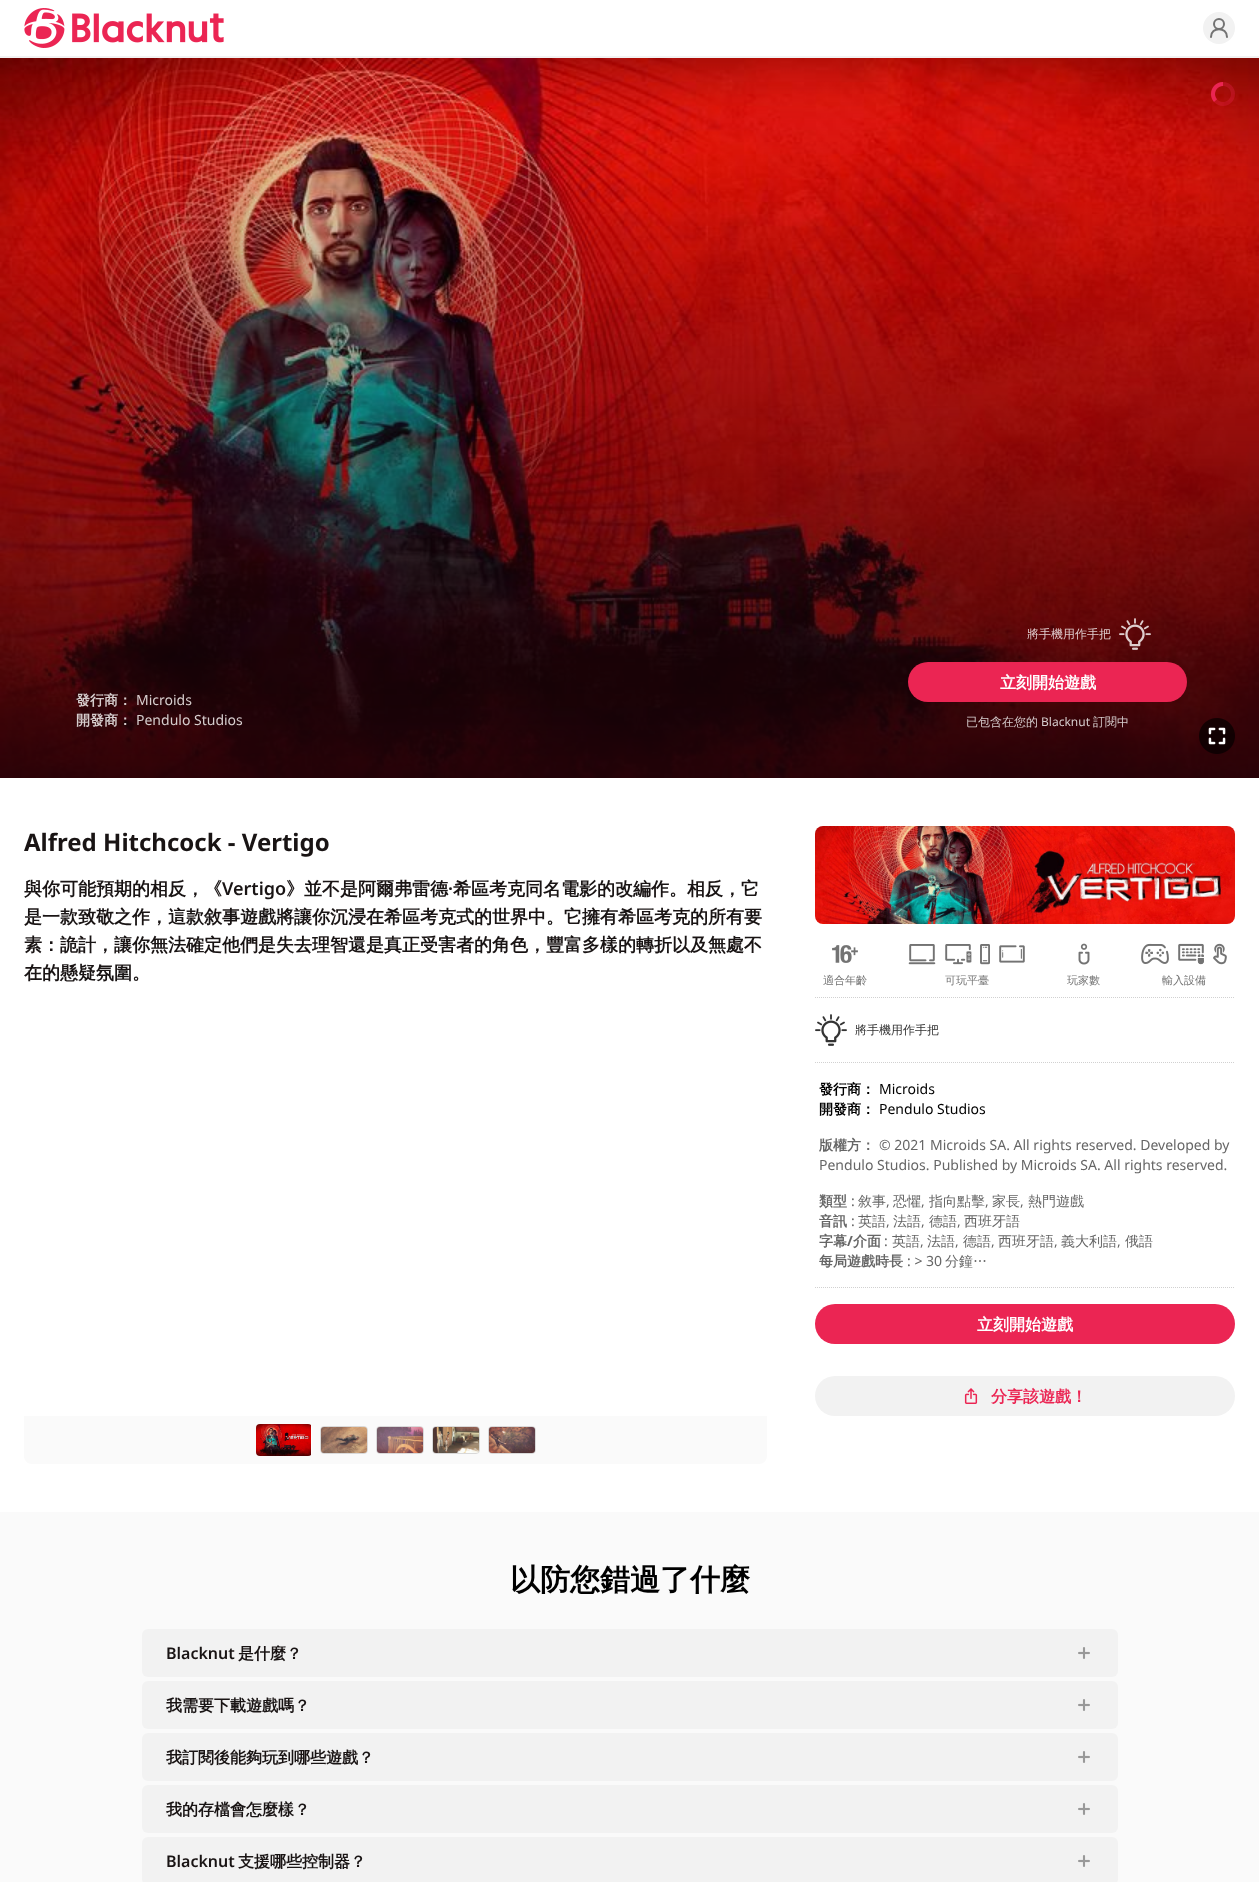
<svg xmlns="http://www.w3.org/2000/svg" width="1259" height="1882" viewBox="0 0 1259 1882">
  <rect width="100%" height="100%" fill="rgb(255,255,255)"/>
  <rect x="0" y="56" width="1259" height="2" fill="rgb(242,242,242)"/>
  <image x="24" y="8" width="200" height="40" href="pic1.png"/>
  <circle cx="1219" cy="28" r="16" fill="rgb(242,242,242)"/>
  <circle cx="1219" cy="24" r="5" fill="none" stroke="rgb(115,115,115)" stroke-width="2"/>
  <path d="M1227 37C1227 26.5 1211 26.5 1211 37" fill="none" stroke="rgb(115,115,115)" stroke-width="2" stroke-linecap="round" stroke-linejoin="round"/>
  <image x="0" y="58" width="1259" height="720" href="pic2.png"/>
  <image x="1211" y="82" width="24" height="24" href="pic3.png"/>
  <text x="76" y="705" font-family="WenQuanYi Zen Hei" font-size="14" font-weight="bold" fill="rgb(214,205,205)">發行商：</text>
  <text x="136" y="705" font-family="Noto Sans" font-size="14" fill="rgb(214,205,205)">Microids</text>
  <text x="76" y="725" font-family="WenQuanYi Zen Hei" font-size="14" font-weight="bold" fill="rgb(214,205,205)">開發商：</text>
  <text x="136" y="725" font-family="Noto Sans" font-size="14" fill="rgb(214,205,205)">Pendulo Studios</text>
  <text x="1027" y="638" font-family="WenQuanYi Zen Hei" font-size="12" font-weight="500" fill="rgb(223,205,206)">將手機用作手把</text>
  <image x="1119" y="618" width="32" height="32" href="pic4.png"/>
  <rect x="908" y="662" width="279" height="40" rx="20" fill="rgb(235,37,83)"/>
  <text x="1000" y="688" font-family="WenQuanYi Zen Hei" font-size="16" font-weight="bold" fill="rgb(255,255,255)">立刻開始遊戲</text>
  <text x="966" y="726" font-family="WenQuanYi Zen Hei" font-size="12" font-weight="500" fill="rgb(214,205,205)">已包含在您的</text>
  <text x="1041" y="726" font-family="Noto Sans" font-size="12" fill="rgb(214,205,205)">Blacknut</text>
  <text x="1093" y="726" font-family="WenQuanYi Zen Hei" font-size="12" font-weight="500" fill="rgb(214,205,205)">訂閱中</text>
  <image x="1199" y="718" width="36" height="36" href="pic5.png"/>
  <text x="24" y="851" font-family="Noto Sans" font-size="24" font-weight="bold" fill="rgb(25,20,20)">Alfred Hitchcock - Vertigo</text>
  <text x="24" y="895" font-family="WenQuanYi Zen Hei" font-size="18" font-weight="bold" fill="rgb(25,20,20)">與你可能預期的相反，《</text>
  <text x="222" y="895" font-family="Noto Sans" font-size="18" font-weight="600" fill="rgb(25,20,20)">Vertigo</text>
  <text x="286" y="895" font-family="WenQuanYi Zen Hei" font-size="18" font-weight="bold" fill="rgb(25,20,20)">》並不是阿爾弗雷德</text>
  <text x="448" y="895" font-family="Noto Sans" font-size="18" font-weight="600" fill="rgb(25,20,20)">·</text>
  <g font-family="WenQuanYi Zen Hei" font-size="18" font-weight="bold" fill="rgb(25,20,20)">
    <text x="453" y="895">希區考克同名電影的改編作。相反，它</text>
    <text>
      <tspan x="24" y="923">是一款致敬之作，這款敘事遊戲將讓你沉浸在希區考克式的世界中。它擁有希區考克的所有要</tspan>
      <tspan x="24" y="951">素：詭計，讓你無法確定他們是失去理智還是真正受害者的角色，豐富多樣的轉折以及無處不</tspan>
      <tspan x="24" y="979">在的懸疑氛圍。</tspan>
    </text>
  </g>
  <path d="M24 1416H767V1456C767 1460.5 763.5 1464 759 1464H32C27.5 1464 24 1460.5 24 1456Z" fill="rgb(250,250,250)"/>
  <rect x="256" y="1424" width="56" height="32" rx="4" fill="rgb(255,255,255)"/>
  <image x="256" y="1424" width="55" height="32" href="pic6.png"/>
  <rect x="320.5" y="1426.5" width="47" height="27" rx="3.5" fill="none" stroke="rgb(217,217,217)"/>
  <image x="321" y="1427" width="46" height="26" href="pic7.png"/>
  <rect x="376.5" y="1426.5" width="47" height="27" rx="3.5" fill="none" stroke="rgb(217,217,217)"/>
  <image x="377" y="1427" width="46" height="26" href="pic8.png"/>
  <rect x="432.5" y="1426.5" width="47" height="27" rx="3.5" fill="none" stroke="rgb(217,217,217)"/>
  <image x="433" y="1427" width="46" height="26" href="pic9.png"/>
  <rect x="488.5" y="1426.5" width="47" height="27" rx="3.5" fill="none" stroke="rgb(217,217,217)"/>
  <image x="489" y="1427" width="46" height="26" href="pic10.png"/>
  <image x="815" y="826" width="420" height="98" href="pic11.png"/>
  <path d="M815 997.5H1235" fill="none" stroke="rgb(209,209,209)" stroke-dasharray="1 1"/>
  <image x="832" y="945" width="26" height="18" href="pic12.png"/>
  <text x="823" y="984" font-family="WenQuanYi Zen Hei" font-size="11" font-weight="500" fill="rgb(115,115,115)">適合年齡</text>
  <image x="908" y="944" width="28" height="21" href="pic13.png"/>
  <image x="945" y="944" width="27" height="21" href="pic14.png"/>
  <image x="980" y="944" width="10" height="21" href="pic15.png"/>
  <image x="999" y="945" width="26" height="18" href="pic16.png"/>
  <text x="945" y="984" font-family="WenQuanYi Zen Hei" font-size="11" font-weight="500" fill="rgb(115,115,115)">可玩平臺</text>
  <image x="1078" y="943" width="12" height="22" href="pic17.png"/>
  <text x="1067" y="984" font-family="WenQuanYi Zen Hei" font-size="11" font-weight="500" fill="rgb(115,115,115)">玩家數</text>
  <image x="1141" y="943" width="28" height="21" href="pic18.png"/>
  <image x="1178" y="943" width="26" height="22" href="pic19.png"/>
  <image x="1213" y="943" width="14" height="22" href="pic20.png"/>
  <text x="1162" y="984" font-family="WenQuanYi Zen Hei" font-size="11" font-weight="500" fill="rgb(115,115,115)">輸入設備</text>
  <path d="M815 1062.5H1235" fill="none" stroke="rgb(209,209,209)" stroke-dasharray="1 1"/>
  <image x="815" y="1014" width="32" height="32" href="pic21.png"/>
  <text x="855" y="1034" font-family="WenQuanYi Zen Hei" font-size="12" font-weight="500" fill="rgb(51,51,51)">將手機用作手把</text>
  <text x="819" y="1094" font-family="WenQuanYi Zen Hei" font-size="14" font-weight="bold" fill="rgb(0,0,0)">發行商：</text>
  <text x="879" y="1094" font-family="Noto Sans" font-size="14" fill="rgb(0,0,0)">Microids</text>
  <text x="819" y="1114" font-family="WenQuanYi Zen Hei" font-size="14" font-weight="bold" fill="rgb(0,0,0)">開發商：</text>
  <text x="879" y="1114" font-family="Noto Sans" font-size="14" fill="rgb(0,0,0)">Pendulo Studios</text>
  <text x="819" y="1150" font-family="WenQuanYi Zen Hei" font-size="14" font-weight="bold" fill="rgb(102,102,102)">版權方：</text>
  <g font-family="Noto Sans" font-size="14" fill="rgb(102,102,102)">
    <text x="879" y="1150">© 2021 Microids SA. All rights reserved. Developed by</text>
    <text x="819" y="1170">Pendulo Studios. Published by Microids SA. All rights reserved.</text>
  </g>
  <text x="819" y="1206" font-family="WenQuanYi Zen Hei" font-size="14" font-weight="bold" fill="rgb(102,102,102)">類型</text>
  <text x="851" y="1206" font-family="Noto Sans" font-size="14" fill="rgb(102,102,102)">:</text>
  <text x="858" y="1206" font-family="WenQuanYi Zen Hei" font-size="14" font-weight="500" fill="rgb(102,102,102)">敘事</text>
  <text x="886" y="1206" font-family="Noto Sans" font-size="14" fill="rgb(102,102,102)">,</text>
  <text x="893" y="1206" font-family="WenQuanYi Zen Hei" font-size="14" font-weight="500" fill="rgb(102,102,102)">恐懼</text>
  <text x="921" y="1206" font-family="Noto Sans" font-size="14" fill="rgb(102,102,102)">,</text>
  <text x="929" y="1206" font-family="WenQuanYi Zen Hei" font-size="14" font-weight="500" fill="rgb(102,102,102)">指向點擊</text>
  <text x="985" y="1206" font-family="Noto Sans" font-size="14" fill="rgb(102,102,102)">,</text>
  <text x="992" y="1206" font-family="WenQuanYi Zen Hei" font-size="14" font-weight="500" fill="rgb(102,102,102)">家長</text>
  <text x="1020" y="1206" font-family="Noto Sans" font-size="14" fill="rgb(102,102,102)">,</text>
  <text x="1028" y="1206" font-family="WenQuanYi Zen Hei" font-size="14" font-weight="500" fill="rgb(102,102,102)">熱門遊戲</text>
  <text x="819" y="1226" font-family="WenQuanYi Zen Hei" font-size="14" font-weight="bold" fill="rgb(102,102,102)">音訊</text>
  <text x="851" y="1226" font-family="Noto Sans" font-size="14" fill="rgb(102,102,102)">:</text>
  <text x="858" y="1226" font-family="WenQuanYi Zen Hei" font-size="14" font-weight="500" fill="rgb(102,102,102)">英語</text>
  <text x="886" y="1226" font-family="Noto Sans" font-size="14" fill="rgb(102,102,102)">,</text>
  <text x="893" y="1226" font-family="WenQuanYi Zen Hei" font-size="14" font-weight="500" fill="rgb(102,102,102)">法語</text>
  <text x="921" y="1226" font-family="Noto Sans" font-size="14" fill="rgb(102,102,102)">,</text>
  <text x="929" y="1226" font-family="WenQuanYi Zen Hei" font-size="14" font-weight="500" fill="rgb(102,102,102)">德語</text>
  <text x="957" y="1226" font-family="Noto Sans" font-size="14" fill="rgb(102,102,102)">,</text>
  <text x="964" y="1226" font-family="WenQuanYi Zen Hei" font-size="14" font-weight="500" fill="rgb(102,102,102)">西班牙語</text>
  <text x="819" y="1246" font-family="WenQuanYi Zen Hei" font-size="14" font-weight="bold" fill="rgb(102,102,102)">字幕</text>
  <text x="847" y="1246" font-family="Noto Sans" font-size="14" font-weight="bold" fill="rgb(102,102,102)">/</text>
  <text x="853" y="1246" font-family="WenQuanYi Zen Hei" font-size="14" font-weight="bold" fill="rgb(102,102,102)">介面</text>
  <text x="884" y="1246" font-family="Noto Sans" font-size="14" fill="rgb(102,102,102)">:</text>
  <text x="892" y="1246" font-family="WenQuanYi Zen Hei" font-size="14" font-weight="500" fill="rgb(102,102,102)">英語</text>
  <text x="920" y="1246" font-family="Noto Sans" font-size="14" fill="rgb(102,102,102)">,</text>
  <text x="927" y="1246" font-family="WenQuanYi Zen Hei" font-size="14" font-weight="500" fill="rgb(102,102,102)">法語</text>
  <text x="955" y="1246" font-family="Noto Sans" font-size="14" fill="rgb(102,102,102)">,</text>
  <text x="963" y="1246" font-family="WenQuanYi Zen Hei" font-size="14" font-weight="500" fill="rgb(102,102,102)">德語</text>
  <text x="991" y="1246" font-family="Noto Sans" font-size="14" fill="rgb(102,102,102)">,</text>
  <text x="998" y="1246" font-family="WenQuanYi Zen Hei" font-size="14" font-weight="500" fill="rgb(102,102,102)">西班牙語</text>
  <text x="1054" y="1246" font-family="Noto Sans" font-size="14" fill="rgb(102,102,102)">,</text>
  <text x="1061" y="1246" font-family="WenQuanYi Zen Hei" font-size="14" font-weight="500" fill="rgb(102,102,102)">義大利語</text>
  <text x="1117" y="1246" font-family="Noto Sans" font-size="14" fill="rgb(102,102,102)">,</text>
  <text x="1125" y="1246" font-family="WenQuanYi Zen Hei" font-size="14" font-weight="500" fill="rgb(102,102,102)">俄語</text>
  <text x="819" y="1266" font-family="WenQuanYi Zen Hei" font-size="14" font-weight="bold" fill="rgb(102,102,102)">每局遊戲時長</text>
  <text x="907" y="1266" font-family="Noto Sans" font-size="14" fill="rgb(102,102,102)">: &gt; 30</text>
  <text x="945" y="1266" font-family="WenQuanYi Zen Hei" font-size="14" font-weight="500" fill="rgb(102,102,102)">分鐘…</text>
  <path d="M815 1287.5H1235" fill="none" stroke="rgb(209,209,209)" stroke-dasharray="1 1"/>
  <rect x="815" y="1304" width="420" height="40" rx="20" fill="rgb(235,37,83)"/>
  <text x="977" y="1330" font-family="WenQuanYi Zen Hei" font-size="16" font-weight="bold" fill="rgb(255,255,255)">立刻開始遊戲</text>
  <rect x="815" y="1376" width="420" height="40" rx="20" fill="rgb(242,242,242)"/>
  <image x="964" y="1388" width="14" height="16" href="pic22.png"/>
  <text x="991" y="1402" font-family="WenQuanYi Zen Hei" font-size="16" font-weight="bold" fill="rgb(235,37,83)">分享該遊戲！</text>
  <rect x="0" y="1512" width="1259" height="370" fill="rgb(250,250,250)"/>
  <text x="510" y="1590" font-family="WenQuanYi Zen Hei" font-size="30" font-weight="bold" fill="rgb(0,0,0)">以防您錯過了什麼</text>
  <rect x="142" y="1629" width="976" height="48" rx="6" fill="rgb(242,242,242)"/>
  <text x="166" y="1659" font-family="Noto Sans" font-size="16" font-weight="600" fill="rgb(25,20,20)">Blacknut</text>
  <text x="238" y="1659" font-family="WenQuanYi Zen Hei" font-size="16" font-weight="bold" fill="rgb(25,20,20)">是什麼？</text>
  <image x="1078" y="1647" width="12" height="12" href="pic23.png"/>
  <rect x="142" y="1681" width="976" height="48" rx="6" fill="rgb(242,242,242)"/>
  <text x="166" y="1711" font-family="WenQuanYi Zen Hei" font-size="16" font-weight="bold" fill="rgb(25,20,20)">我需要下載遊戲嗎？</text>
  <image x="1078" y="1699" width="12" height="12" href="pic23.png"/>
  <rect x="142" y="1733" width="976" height="48" rx="6" fill="rgb(242,242,242)"/>
  <text x="166" y="1763" font-family="WenQuanYi Zen Hei" font-size="16" font-weight="bold" fill="rgb(25,20,20)">我訂閱後能夠玩到哪些遊戲？</text>
  <image x="1078" y="1751" width="12" height="12" href="pic23.png"/>
  <rect x="142" y="1785" width="976" height="48" rx="6" fill="rgb(242,242,242)"/>
  <text x="166" y="1815" font-family="WenQuanYi Zen Hei" font-size="16" font-weight="bold" fill="rgb(25,20,20)">我的存檔會怎麼樣？</text>
  <image x="1078" y="1803" width="12" height="12" href="pic23.png"/>
  <rect x="142" y="1837" width="976" height="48" rx="6" fill="rgb(242,242,242)"/>
  <text x="166" y="1867" font-family="Noto Sans" font-size="16" font-weight="600" fill="rgb(25,20,20)">Blacknut</text>
  <text x="238" y="1867" font-family="WenQuanYi Zen Hei" font-size="16" font-weight="bold" fill="rgb(25,20,20)">支援哪些控制器？</text>
  <image x="1078" y="1855" width="12" height="12" href="pic23.png"/>
</svg>
